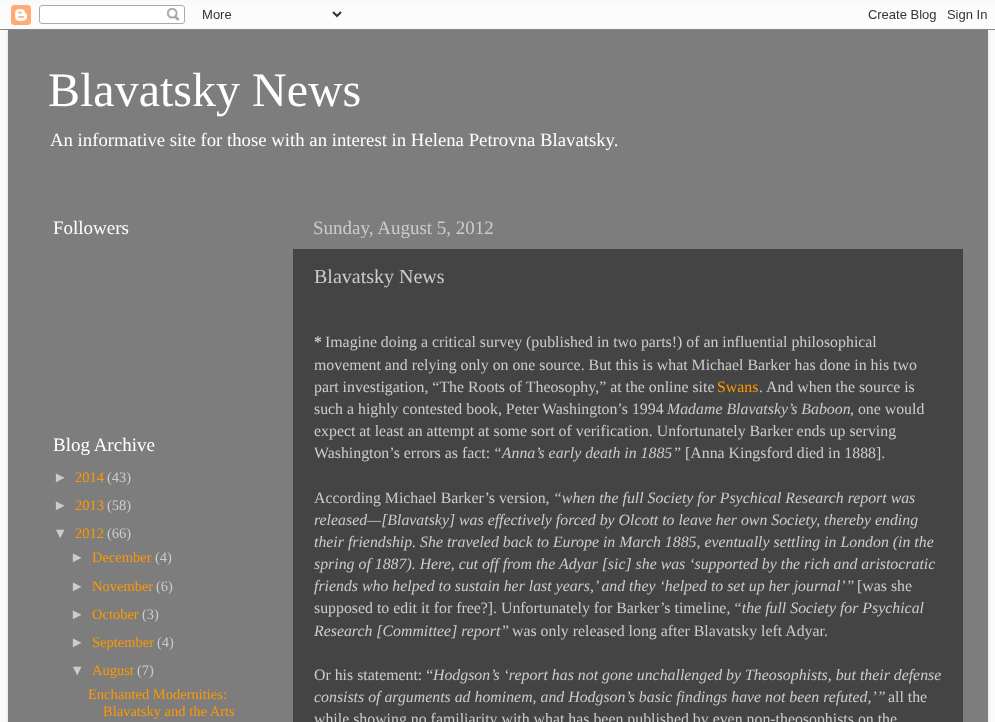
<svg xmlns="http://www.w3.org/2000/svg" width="995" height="722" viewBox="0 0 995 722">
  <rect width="100%" height="100%" fill="rgb(250,250,250)"/>
  <rect x="8" y="30" width="980" height="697" fill="rgba(0,0,0,0.15)" filter="blur(1.5px)"/>
  <image x="0" y="5" width="995" height="25" href="pic1.png"/>
  <rect x="8" y="30" width="980" height="692" fill="rgb(125,125,125)"/>
  <text x="48" y="106" font-family="Liberation Serif" font-size="48" fill="rgb(255,255,255)">Blavatsky News</text>
  <text x="50" y="146" font-family="Liberation Serif" font-size="18.75" fill="rgb(255,255,255)">An informative site for those with an interest in Helena Petrovna Blavatsky.</text>
  <g font-family="Liberation Serif" font-size="19" fill="rgb(255,255,255)">
    <text x="53" y="234">Followers</text>
    <text x="53" y="451">Blog Archive</text>
  </g>
  <text x="53" y="482" font-family="Liberation Sans" font-size="14.5" fill="rgb(204,204,204)">►</text>
  <text x="75" y="482" font-family="Liberation Serif" font-size="14.5" fill="rgb(255,153,0)">2014</text>
  <text x="107" y="482" font-family="Liberation Serif" font-size="14.5" fill="rgb(204,204,204)">(43)</text>
  <text x="53" y="510" font-family="Liberation Sans" font-size="14.5" fill="rgb(204,204,204)">►</text>
  <text x="75" y="510" font-family="Liberation Serif" font-size="14.5" fill="rgb(255,153,0)">2013</text>
  <text x="107" y="510" font-family="Liberation Serif" font-size="14.5" fill="rgb(204,204,204)">(58)</text>
  <text x="53" y="538" font-family="Liberation Sans" font-size="14.5" fill="rgb(204,204,204)">▼</text>
  <text x="75" y="538" font-family="Liberation Serif" font-size="14.5" fill="rgb(255,153,0)">2012</text>
  <text x="107" y="538" font-family="Liberation Serif" font-size="14.5" fill="rgb(204,204,204)">(66)</text>
  <text x="70" y="562" font-family="Liberation Sans" font-size="14.5" fill="rgb(204,204,204)">►</text>
  <text x="92" y="562" font-family="Liberation Serif" font-size="14.5" fill="rgb(255,153,0)">December</text>
  <text x="155" y="562" font-family="Liberation Serif" font-size="14.5" fill="rgb(204,204,204)">(4)</text>
  <text x="70" y="591" font-family="Liberation Sans" font-size="14.5" fill="rgb(204,204,204)">►</text>
  <text x="92" y="591" font-family="Liberation Serif" font-size="14.5" fill="rgb(255,153,0)">November</text>
  <text x="156" y="591" font-family="Liberation Serif" font-size="14.5" fill="rgb(204,204,204)">(6)</text>
  <text x="70" y="619" font-family="Liberation Sans" font-size="14.5" fill="rgb(204,204,204)">►</text>
  <text x="92" y="619" font-family="Liberation Serif" font-size="14.5" fill="rgb(255,153,0)">October</text>
  <text x="142" y="619" font-family="Liberation Serif" font-size="14.5" fill="rgb(204,204,204)">(3)</text>
  <text x="70" y="647" font-family="Liberation Sans" font-size="14.5" fill="rgb(204,204,204)">►</text>
  <text x="92" y="647" font-family="Liberation Serif" font-size="14.5" fill="rgb(255,153,0)">September</text>
  <text x="157" y="647" font-family="Liberation Serif" font-size="14.5" fill="rgb(204,204,204)">(4)</text>
  <text x="70" y="675" font-family="Liberation Sans" font-size="14.5" fill="rgb(204,204,204)">▼</text>
  <text x="92" y="675" font-family="Liberation Serif" font-size="14.5" fill="rgb(255,153,0)">August</text>
  <text x="137" y="675" font-family="Liberation Serif" font-size="14.5" fill="rgb(204,204,204)">(7)</text>
  <g font-family="Liberation Serif" font-size="14.5" fill="rgb(255,153,0)">
    <text x="88" y="699">Enchanted Modernities:</text>
    <text x="103" y="716">Blavatsky and the Arts</text>
  </g>
  <text x="313" y="234" font-family="Liberation Serif" font-size="19" fill="rgb(204,204,204)">Sunday, August 5, 2012</text>
  <rect x="293" y="249" width="670" height="473" fill="rgb(68,68,68)"/>
  <text x="314" y="283" font-family="Liberation Serif" font-size="20" fill="rgb(204,204,204)">Blavatsky News</text>
  <text x="314" y="347" font-family="Liberation Serif" font-size="15.85" font-weight="bold" fill="rgb(204,204,204)">*</text>
  <g font-family="Liberation Serif" font-size="15.85" fill="rgb(204,204,204)">
    <text x="325" y="347">Imagine doing a critical survey (published in two parts!) of an influential philosophical</text>
    <text>
      <tspan x="314" y="370">movement and relying only on one source. But this is what Michael Barker has done in his two</tspan>
      <tspan x="314" y="392">part investigation, “The Roots of Theosophy,” at the online site</tspan>
    </text>
  </g>
  <text x="717" y="392" font-family="Liberation Serif" font-size="15.85" fill="rgb(255,153,0)">Swans</text>
  <g font-family="Liberation Serif" font-size="15.85" fill="rgb(204,204,204)">
    <text x="759" y="392">. And when the source is</text>
    <text x="314" y="414">such a highly contested book, Peter Washington’s 1994</text>
  </g>
  <text x="667" y="414" font-family="Liberation Serif" font-size="15.85" font-style="italic" fill="rgb(204,204,204)">Madame Blavatsky’s Baboon</text>
  <g font-family="Liberation Serif" font-size="15.85" fill="rgb(204,204,204)">
    <text x="850" y="414">, one would</text>
    <text>
      <tspan x="314" y="436">expect at least an attempt at some sort of verification. Unfortunately Barker ends up serving</tspan>
      <tspan x="314" y="458">Washington’s errors as fact:</tspan>
    </text>
  </g>
  <text x="493" y="458" font-family="Liberation Serif" font-size="15.85" font-style="italic" fill="rgb(204,204,204)">“Anna’s early death in 1885”</text>
  <g font-family="Liberation Serif" font-size="15.85" fill="rgb(204,204,204)">
    <text x="685" y="458">[Anna Kingsford died in 1888].</text>
    <text x="314" y="503">According Michael Barker’s version,</text>
  </g>
  <g font-family="Liberation Serif" font-size="15.85" font-style="italic" fill="rgb(204,204,204)">
    <text x="553" y="503">“when the full Society for Psychical Research report was</text>
    <text>
      <tspan x="314" y="525">released—[Blavatsky] was effectively forced by Olcott to leave her own Society, thereby ending</tspan>
      <tspan x="314" y="547">their friendship. She traveled back to Europe in March 1885, eventually settling in London (in the</tspan>
      <tspan x="314" y="569">spring of 1887). Here, cut off from the Adyar [sic] she was ‘supported by the rich and aristocratic</tspan>
      <tspan x="314" y="591">friends who helped to sustain her last years,’ and they ‘helped to set up her journal’”</tspan>
    </text>
  </g>
  <g font-family="Liberation Serif" font-size="15.85" fill="rgb(204,204,204)">
    <text x="857" y="591">[was she</text>
    <text x="314" y="613">supposed to edit it for free?]. Unfortunately for Barker’s timeline,</text>
  </g>
  <g font-family="Liberation Serif" font-size="15.85" font-style="italic" fill="rgb(204,204,204)">
    <text x="733" y="613">“the full Society for Psychical</text>
    <text x="314" y="636">Research [Committee] report”</text>
  </g>
  <g font-family="Liberation Serif" font-size="15.85" fill="rgb(204,204,204)">
    <text x="512" y="636">was only released long after Blavatsky left Adyar.</text>
    <text x="314" y="680">Or his statement: “</text>
  </g>
  <g font-family="Liberation Serif" font-size="15.85" font-style="italic" fill="rgb(204,204,204)">
    <text x="433" y="680">Hodgson’s ‘report has not gone unchallenged by Theosophists, but their defense</text>
    <text x="314" y="702">consists of arguments ad hominem, and Hodgson’s basic findings have not been refuted,’”</text>
  </g>
  <g font-family="Liberation Serif" font-size="15.85" fill="rgb(204,204,204)">
    <text x="888" y="702">all the</text>
    <text x="314" y="724">while showing no familiarity with what has been published by even non-theosophists on the</text>
  </g>
</svg>
